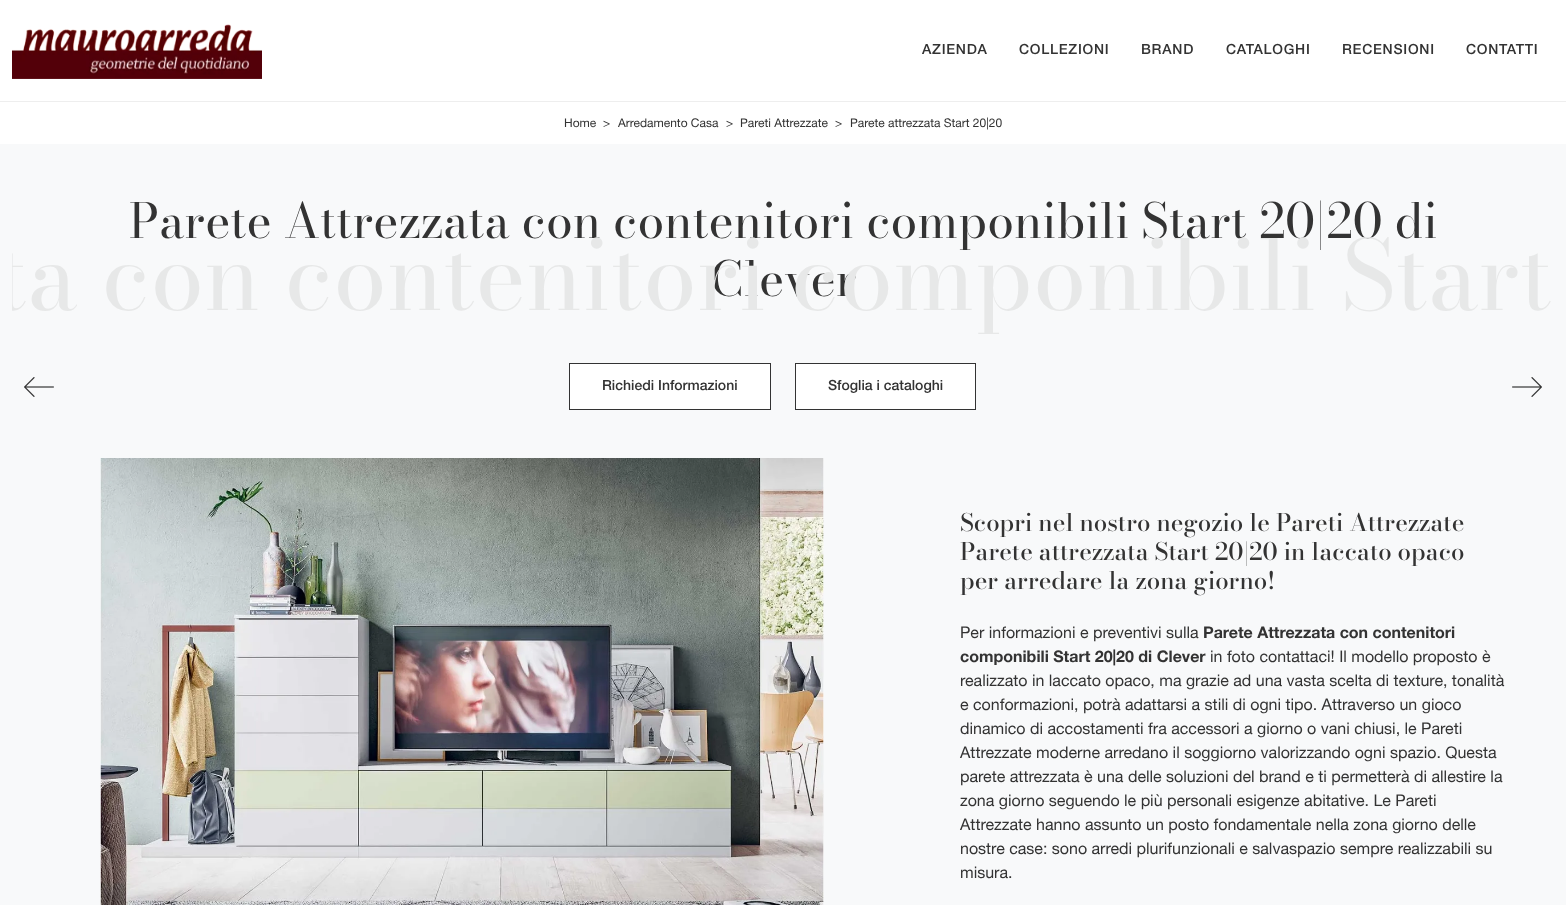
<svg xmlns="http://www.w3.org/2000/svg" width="1566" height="905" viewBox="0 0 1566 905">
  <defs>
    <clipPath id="clip1"><rect x="12" y="144" width="1542" height="211"/></clipPath>
  </defs>
  <rect width="100%" height="100%" fill="rgb(248,249,250)"/>
  <rect x="0" y="0" width="1566" height="101" fill="rgb(255,255,255)"/>
  <rect x="0" y="101" width="1566" height="1" fill="rgb(238,238,238)"/>
  <image x="12" y="24" width="250" height="55" href="pic1.png"/>
  <g font-family="Helvetica Neue" font-size="14" font-weight="500" letter-spacing="0.75" fill="rgb(51,51,51)">
    <text x="922" y="54">AZIENDA</text>
    <text x="1019" y="54">COLLEZIONI</text>
    <text x="1141" y="54">BRAND</text>
    <text x="1226" y="54">CATALOGHI</text>
    <text x="1342" y="54">RECENSIONI</text>
    <text x="1466" y="54">CONTATTI</text>
  </g>
  <rect x="0" y="102" width="1566" height="42" fill="rgb(255,255,255)"/>
  <g font-family="Helvetica Neue" font-size="12" fill="rgb(51,51,51)">
    <text x="564" y="127">Home</text>
    <text x="603" y="127">&gt;</text>
    <text x="618" y="127">Arredamento Casa</text>
    <text x="726" y="127">&gt;</text>
    <text x="740" y="127">Pareti Attrezzate</text>
    <text x="835" y="127">&gt;</text>
    <text x="850" y="127">Parete attrezzata Start 20|20</text>
  </g>
  <g font-family="Bodoni Moda" font-size="48" fill="rgb(51,51,51)">
    <text x="129" y="238">Parete Attrezzata con contenitori componibili Start 20|20 di</text>
    <text x="710" y="296">Clever</text>
  </g>
  <g clip-path="url(#clip1)">
    <text x="-5" y="310" font-family="Bodoni Moda" font-size="96" fill="rgb(231,232,232)">ta con contenitori componibili Start</text>
  </g>
  <image x="24" y="377" width="30" height="20" href="pic2.png"/>
  <rect x="569.5" y="363.5" width="201" height="46" fill="rgb(255,255,255)" stroke="rgb(51,51,51)"/>
  <text x="602" y="390" font-family="Helvetica Neue" font-size="14" font-weight="500" fill="rgb(51,51,51)">Richiedi Informazioni</text>
  <rect x="795.5" y="363.5" width="180" height="46" fill="rgb(255,255,255)" stroke="rgb(51,51,51)"/>
  <text x="828" y="390" font-family="Helvetica Neue" font-size="14" font-weight="500" fill="rgb(51,51,51)">Sfoglia i cataloghi</text>
  <image x="1512" y="377" width="30" height="20" href="pic3.png"/>
  <image x="100" y="458" width="724" height="447" href="pic4.png"/>
  <g font-family="Bodoni Moda" font-size="24" font-weight="500" fill="rgb(51,51,51)">
    <text>
      <tspan x="960" y="531">Scopri nel nostro negozio le Pareti Attrezzate</tspan>
      <tspan x="960" y="560">Parete attrezzata Start 20|20 in laccato opaco</tspan>
      <tspan x="960" y="589">per arredare la zona giorno!</tspan>
    </text>
  </g>
  <text x="960" y="638" font-family="Helvetica Neue" font-size="16" fill="rgb(51,51,51)">Per informazioni e preventivi sulla</text>
  <g font-family="Helvetica Neue" font-size="16" font-weight="bold" fill="rgb(51,51,51)">
    <text x="1203" y="638">Parete Attrezzata con contenitori</text>
    <text x="960" y="662">componibili Start 20|20 di Clever</text>
  </g>
  <g font-family="Helvetica Neue" font-size="16" fill="rgb(51,51,51)">
    <text x="1210" y="662">in foto contattaci! Il modello proposto è</text>
    <text>
      <tspan x="960" y="686">realizzato in laccato opaco, ma grazie ad una vasta scelta di texture, tonalità</tspan>
      <tspan x="960" y="710">e conformazioni, potrà adattarsi a stili di ogni tipo. Attraverso un gioco</tspan>
      <tspan x="960" y="734">dinamico di accostamenti fra accessori a giorno o vani chiusi, le Pareti</tspan>
      <tspan x="960" y="758">Attrezzate moderne arredano il soggiorno valorizzando ogni spazio. Questa</tspan>
      <tspan x="960" y="782">parete attrezzata è una delle soluzioni del brand e ti permetterà di allestire la</tspan>
      <tspan x="960" y="806">zona giorno seguendo le più personali esigenze abitative. Le Pareti</tspan>
      <tspan x="960" y="830">Attrezzate hanno assunto un posto fondamentale nella zona giorno delle</tspan>
      <tspan x="960" y="854">nostre case: sono arredi plurifunzionali e salvaspazio sempre realizzabili su</tspan>
      <tspan x="960" y="878">misura.</tspan>
    </text>
  </g>
</svg>
